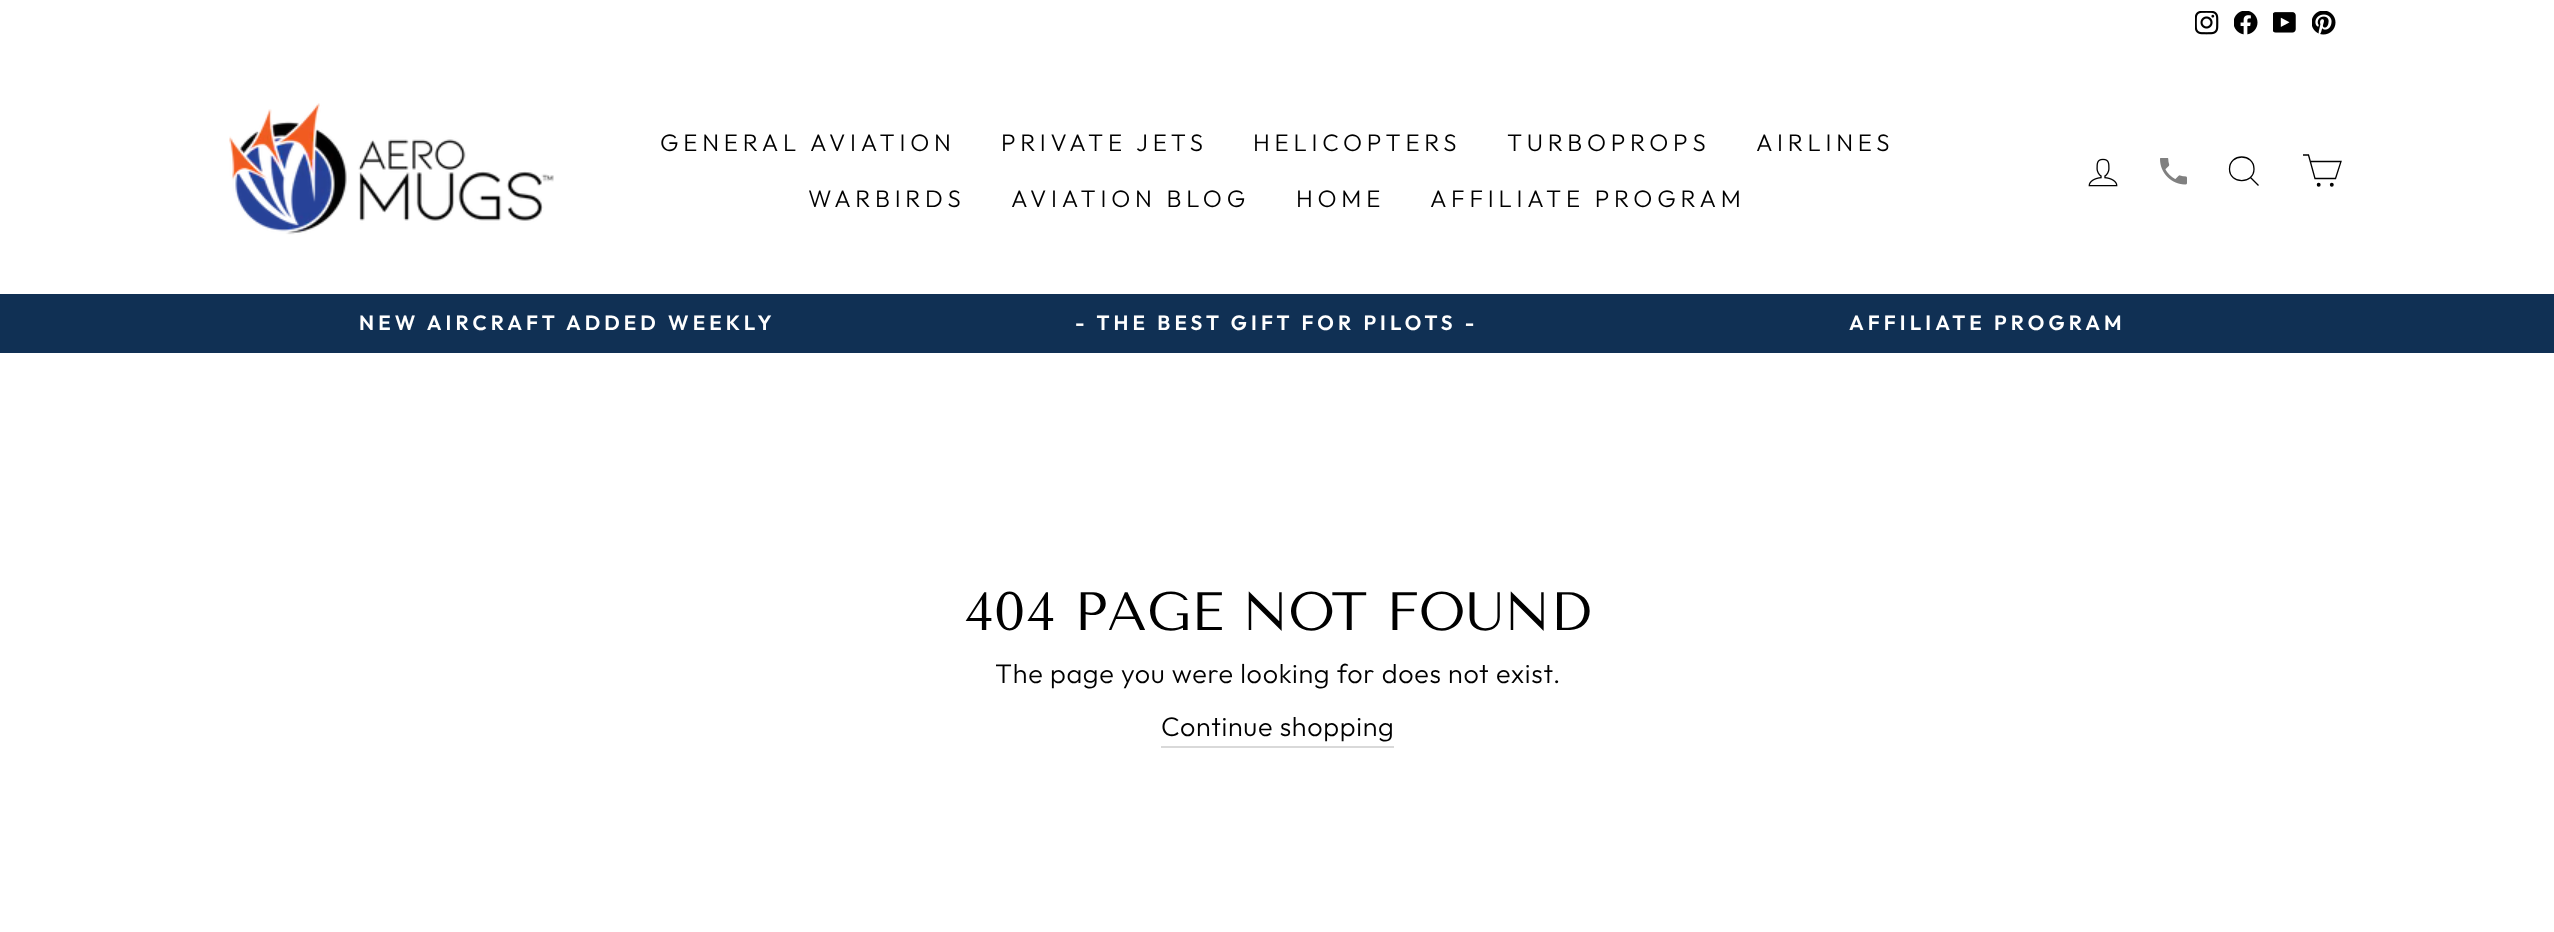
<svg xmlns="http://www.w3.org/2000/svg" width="2554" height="932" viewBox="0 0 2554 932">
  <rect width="100%" height="100%" fill="rgb(255,255,255)"/>
  <image x="2195" y="11" width="24" height="24" href="pic1.png"/>
  <image x="2234" y="11" width="24" height="24" href="pic2.png"/>
  <image x="2273" y="12" width="23" height="21" href="pic3.png"/>
  <image x="2312" y="11" width="24" height="24" href="pic4.png"/>
  <image x="229" y="103" width="325" height="132" href="pic5.png"/>
  <g font-family="Outfit" font-size="24" font-weight="300" letter-spacing="4.75" fill="rgb(0,0,0)">
    <text x="660" y="151">GENERAL AVIATION</text>
    <text x="1001" y="151">PRIVATE JETS</text>
    <text x="1253" y="151">HELICOPTERS</text>
    <text x="1507" y="151">TURBOPROPS</text>
    <text x="1756" y="151">AIRLINES</text>
    <text x="808" y="207">WARBIRDS</text>
    <text x="1011" y="207">AVIATION BLOG</text>
    <text x="1296" y="207">HOME</text>
    <text x="1430" y="207">AFFILIATE PROGRAM</text>
  </g>
  <image x="2088" y="158" width="30" height="29" href="pic6.png"/>
  <image x="2160" y="158" width="27" height="27" href="pic7.png"/>
  <path d="M2254 169C2254 184.5 2229.5 184.5 2229.5 169C2229.5 153 2254 153 2254 169ZM2258.5 185.5L2250.5 177.5" fill="none" stroke="rgb(0,0,0)" stroke-width="1.3"/>
  <path d="M2310 161.5H2341L2335.5 178.5H2315L2308.5 155H2303" fill="none" stroke="rgb(0,0,0)" stroke-width="1.3"/>
  <circle cx="2318.7" cy="184.8" r="1.3" fill="rgb(0,0,0)" stroke="rgb(0,0,0)" stroke-width="1.3"/>
  <circle cx="2331.8" cy="184.8" r="1.3" fill="rgb(0,0,0)" stroke="rgb(0,0,0)" stroke-width="1.3"/>
  <rect x="0" y="294" width="2554" height="59" fill="rgb(16,48,84)"/>
  <g font-family="Outfit" font-size="20.7" font-weight="600" letter-spacing="4.1" fill="rgb(255,255,255)">
    <text x="359" y="330">NEW AIRCRAFT ADDED WEEKLY</text>
    <text x="1075" y="330">- THE BEST GIFT FOR PILOTS -</text>
    <text x="1849" y="330">AFFILIATE PROGRAM</text>
  </g>
  <text x="964" y="630" font-family="Tenor Sans" font-size="54" fill="rgb(0,0,0)">404 PAGE NOT FOUND</text>
  <text x="995" y="683" font-family="Outfit" font-size="27" font-weight="300" letter-spacing="0.7" fill="rgb(0,0,0)">The page you were looking for does not exist.</text>
  <rect x="1161" y="746" width="233" height="2" fill="rgb(217,217,217)"/>
  <text x="1161" y="736" font-family="Outfit" font-size="27" font-weight="300" letter-spacing="0.7" fill="rgb(0,0,0)">Continue shopping</text>
</svg>
